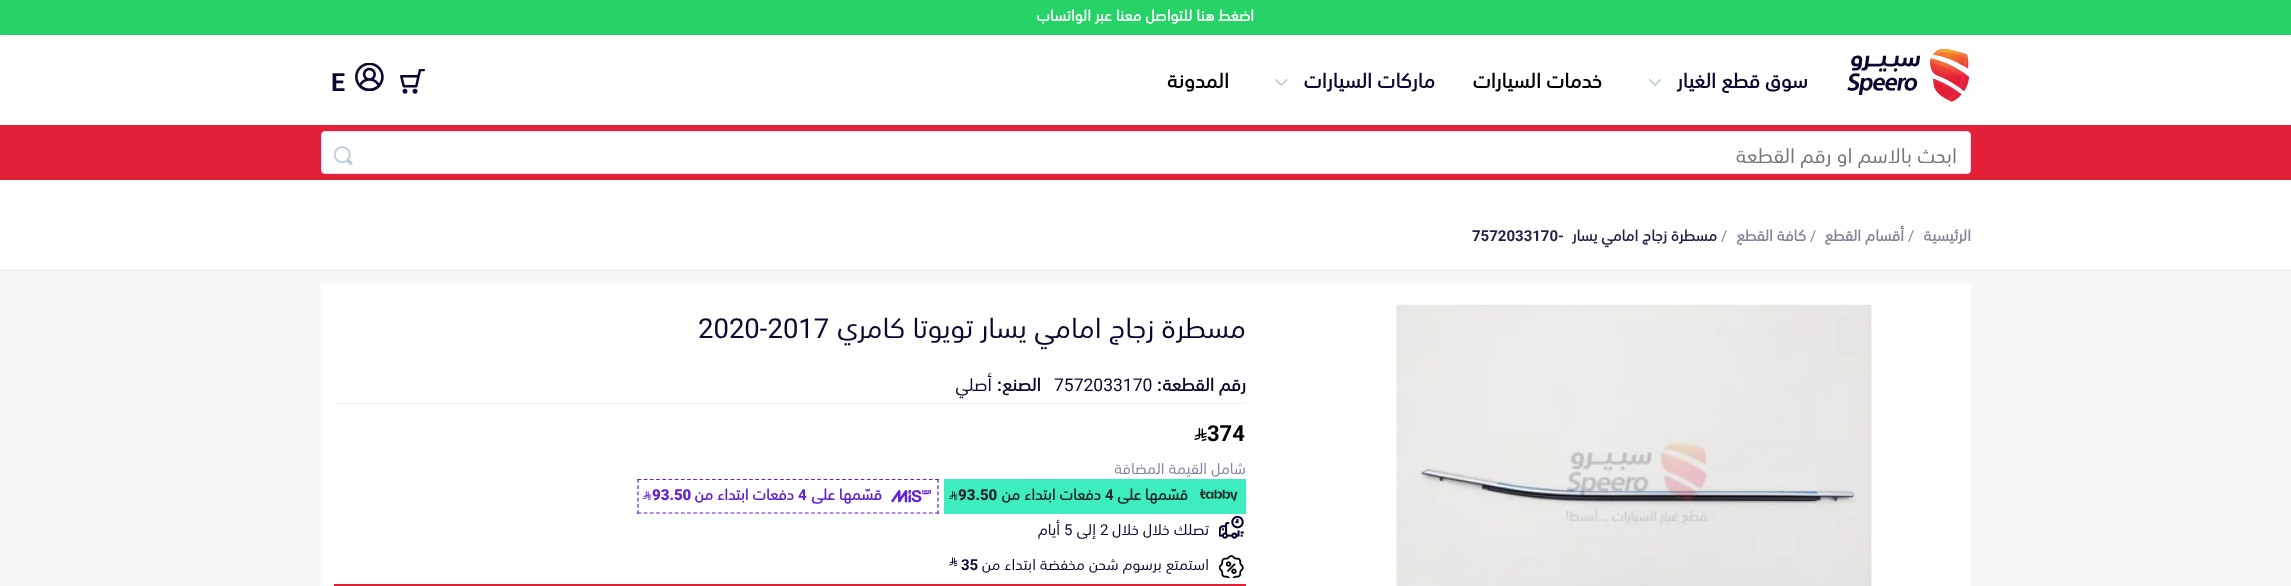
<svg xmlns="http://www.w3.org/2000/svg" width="2291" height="586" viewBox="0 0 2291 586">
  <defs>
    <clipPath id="clip1"><rect x="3" y="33" width="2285" height="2"/></clipPath>
  </defs>
  <rect width="100%" height="100%" fill="rgb(255,255,255)"/>
  <rect x="0" y="0" width="2291" height="35" fill="rgb(37,211,102)"/>
  <g clip-path="url(#clip1)">
    <rect x="0" y="38" width="2291" height="90" fill="rgba(0,0,0,0.1)" filter="blur(6px)"/>
  </g>
  <text x="1254" y="21" font-family="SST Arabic" font-size="15" font-weight="bold" direction="rtl" fill="rgb(255,255,255)">اضغط هنا للتواصل معنا عبر الواتساب</text>
  <image x="1847" y="49" width="122" height="53" href="pic1.png"/>
  <text x="1808" y="88" font-family="SST Arabic" font-size="20" font-weight="bold" direction="rtl" fill="rgb(13,6,48)">سوق قطع الغيار</text>
  <image x="1649" y="79" width="12" height="7" href="pic2.png"/>
  <text x="1602" y="88" font-family="SST Arabic" font-size="20" font-weight="bold" direction="rtl" fill="rgb(0,0,0)">خدمات السيارات</text>
  <text x="1435" y="88" font-family="SST Arabic" font-size="20" font-weight="bold" direction="rtl" fill="rgb(13,6,48)">ماركات السيارات</text>
  <image x="1275" y="79" width="13" height="7" href="pic3.png"/>
  <text x="1229" y="88" font-family="SST Arabic" font-size="20" font-weight="bold" direction="rtl" fill="rgb(0,0,0)">المدونة</text>
  <image x="400" y="69" width="25" height="25" href="pic4.png"/>
  <image x="355" y="63" width="29" height="28" href="pic5.png"/>
  <text x="331" y="91" font-family="Roboto" font-size="25" font-weight="bold" fill="rgb(13,6,48)">E</text>
  <rect x="0" y="125" width="2291" height="55" fill="rgb(228,31,56)"/>
  <rect x="321.5" y="131.5" width="1649" height="42" rx="3.5" fill="rgb(255,255,255)" stroke="rgb(225,220,255)"/>
  <text x="1957" y="163" font-family="SST Arabic" font-size="20" direction="rtl" fill="rgb(117,117,117)">ابحث بالاسم او رقم القطعة</text>
  <image x="334" y="146" width="19" height="19" href="pic6.png"/>
  <rect x="0" y="270" width="2291" height="1" fill="rgb(229,233,242)"/>
  <text x="1971" y="241" font-family="SST Arabic" font-size="15" font-weight="bold" direction="rtl" fill="rgb(134,130,151)">الرئيسية</text>
  <text x="1908" y="241" font-family="Roboto" font-size="15" fill="rgb(134,130,151)">/</text>
  <text x="1904" y="241" font-family="SST Arabic" font-size="15" font-weight="bold" direction="rtl" fill="rgb(134,130,151)">أقسام القطع</text>
  <text x="1810" y="241" font-family="Roboto" font-size="15" fill="rgb(134,130,151)">/</text>
  <text x="1806" y="241" font-family="SST Arabic" font-size="15" font-weight="bold" direction="rtl" fill="rgb(134,130,151)">كافة القطع</text>
  <text x="1721" y="241" font-family="Roboto" font-size="15" fill="rgb(134,130,151)">/</text>
  <text x="1717" y="241" font-family="SST Arabic" font-size="15" font-weight="bold" direction="rtl" fill="rgb(37,30,68)">مسطرة زجاج امامي يسار</text>
  <text x="1472" y="241" font-family="Roboto" font-size="15" font-weight="bold" fill="rgb(37,30,68)">7572033170-</text>
  <rect x="0" y="271" width="2291" height="315" fill="rgb(247,247,250)"/>
  <rect x="321" y="284" width="1650" height="302" fill="rgb(255,255,255)"/>
  <image x="1396" y="304" width="476" height="282" href="pic7.png"/>
  <text x="1246" y="338" font-family="SST Arabic" font-size="27.5" direction="rtl" fill="rgb(13,6,48)">مسطرة زجاج امامي يسار تويوتا كامري</text>
  <text x="698" y="338" font-family="Roboto" font-size="27.5" fill="rgb(13,6,48)">2020-2017</text>
  <rect x="334" y="403" width="912" height="1" fill="rgb(242,242,242)"/>
  <text x="1246" y="391" font-family="SST Arabic" font-size="17.5" font-weight="bold" direction="rtl" fill="rgb(13,6,48)">رقم القطعة</text>
  <text x="1162" y="391" font-family="Roboto" font-size="17.5" font-weight="bold" direction="rtl" fill="rgb(13,6,48)">:</text>
  <text x="1054" y="391" font-family="Roboto" font-size="17.5" fill="rgb(13,6,48)">7572033170</text>
  <text x="1041" y="391" font-family="SST Arabic" font-size="17.5" font-weight="bold" direction="rtl" fill="rgb(13,6,48)">الصنع</text>
  <text x="1002" y="391" font-family="Roboto" font-size="17.5" font-weight="bold" direction="rtl" fill="rgb(13,6,48)">:</text>
  <text x="992" y="391" font-family="SST Arabic" font-size="17.5" direction="rtl" fill="rgb(13,6,48)">أصلي</text>
  <text x="1207" y="441" font-family="Roboto" font-size="22" font-weight="bold" fill="rgb(0,0,0)">374</text>
  <image x="1194" y="427" width="13" height="15" href="pic8.png"/>
  <text x="1246" y="474" font-family="SST Arabic" font-size="15" direction="rtl" fill="rgb(126,133,155)">شامل القيمة المضافة</text>
  <rect x="944" y="479" width="302" height="35" fill="rgb(62,237,191)"/>
  <path d="M944 479.5H1246" fill="none" stroke="rgb(62,237,191)" stroke-width="1.2" stroke-dasharray="3.75 2.48"/>
  <path d="M1245.5 479V514" fill="none" stroke="rgb(62,237,191)" stroke-width="1.2" stroke-dasharray="3.75 2.5"/>
  <path d="M944.5 479V514" fill="none" stroke="rgb(62,237,191)" stroke-width="1.2" stroke-dasharray="3.75 2.5"/>
  <image x="1200" y="489" width="38" height="12" href="pic9.png"/>
  <text x="1188" y="500" font-family="SST Arabic" font-size="15" font-weight="bold" direction="rtl" fill="rgb(41,41,41)">قسّمها على</text>
  <text x="1105" y="500" font-family="Roboto" font-size="15" font-weight="bold" fill="rgb(41,41,41)">4</text>
  <text x="1101" y="500" font-family="SST Arabic" font-size="15" font-weight="bold" direction="rtl" fill="rgb(41,41,41)">دفعات ابتداء من</text>
  <text x="958" y="500" font-family="Roboto" font-size="15" font-weight="900" fill="rgb(41,41,41)">93.50</text>
  <image x="949" y="490" width="9" height="10" href="pic10.png"/>
  <path d="M637.5 479.5H939" fill="none" stroke="rgb(99,34,208)" stroke-width="1.2" stroke-dasharray="3.75 2.45"/>
  <path d="M938 479V514" fill="none" stroke="rgb(99,34,208)" stroke-width="1.2" stroke-dasharray="3.75 2.5"/>
  <path d="M637.5 513H939" fill="none" stroke="rgb(99,34,208)" stroke-width="1.2" stroke-dasharray="3.75 2.45"/>
  <path d="M638 479V514" fill="none" stroke="rgb(99,34,208)" stroke-width="1.2" stroke-dasharray="3.75 2.5"/>
  <image x="891" y="490" width="40" height="13" href="pic11.png"/>
  <text x="882" y="500" font-family="SST Arabic" font-size="15" font-weight="bold" direction="rtl" fill="rgb(99,34,208)">قسّمها على</text>
  <text x="798" y="500" font-family="Roboto" font-size="15" font-weight="bold" fill="rgb(99,34,208)">4</text>
  <text x="794" y="500" font-family="SST Arabic" font-size="15" font-weight="bold" direction="rtl" fill="rgb(99,34,208)">دفعات ابتداء من</text>
  <text x="652" y="500" font-family="Roboto" font-size="15" font-weight="900" fill="rgb(99,34,208)">93.50</text>
  <image x="642" y="490" width="9" height="10" href="pic12.png"/>
  <image x="1219" y="515" width="25" height="24" href="pic13.png"/>
  <text x="1209" y="535" font-family="SST Arabic" font-size="15" direction="rtl" fill="rgb(13,6,48)">تصلك خلال خلال</text>
  <text x="1100" y="535" font-family="Roboto" font-size="15" fill="rgb(13,6,48)">2</text>
  <text x="1096" y="535" font-family="SST Arabic" font-size="15" direction="rtl" fill="rgb(13,6,48)">إلى</text>
  <text x="1064" y="535" font-family="Roboto" font-size="15" fill="rgb(13,6,48)">5</text>
  <text x="1060" y="535" font-family="SST Arabic" font-size="15" direction="rtl" fill="rgb(13,6,48)">أيام</text>
  <image x="1219" y="555" width="25" height="23" href="pic14.png"/>
  <text x="1209" y="570" font-family="SST Arabic" font-size="15" direction="rtl" fill="rgb(13,6,48)">استمتع برسوم شحن مخفضة ابتداء من</text>
  <text x="961" y="570" font-family="Roboto" font-size="15" font-weight="bold" fill="rgb(13,6,48)">35</text>
  <image x="949" y="557" width="9" height="10" href="pic15.png"/>
  <rect x="334" y="584" width="912" height="2" fill="rgb(228,31,56)"/>
</svg>
